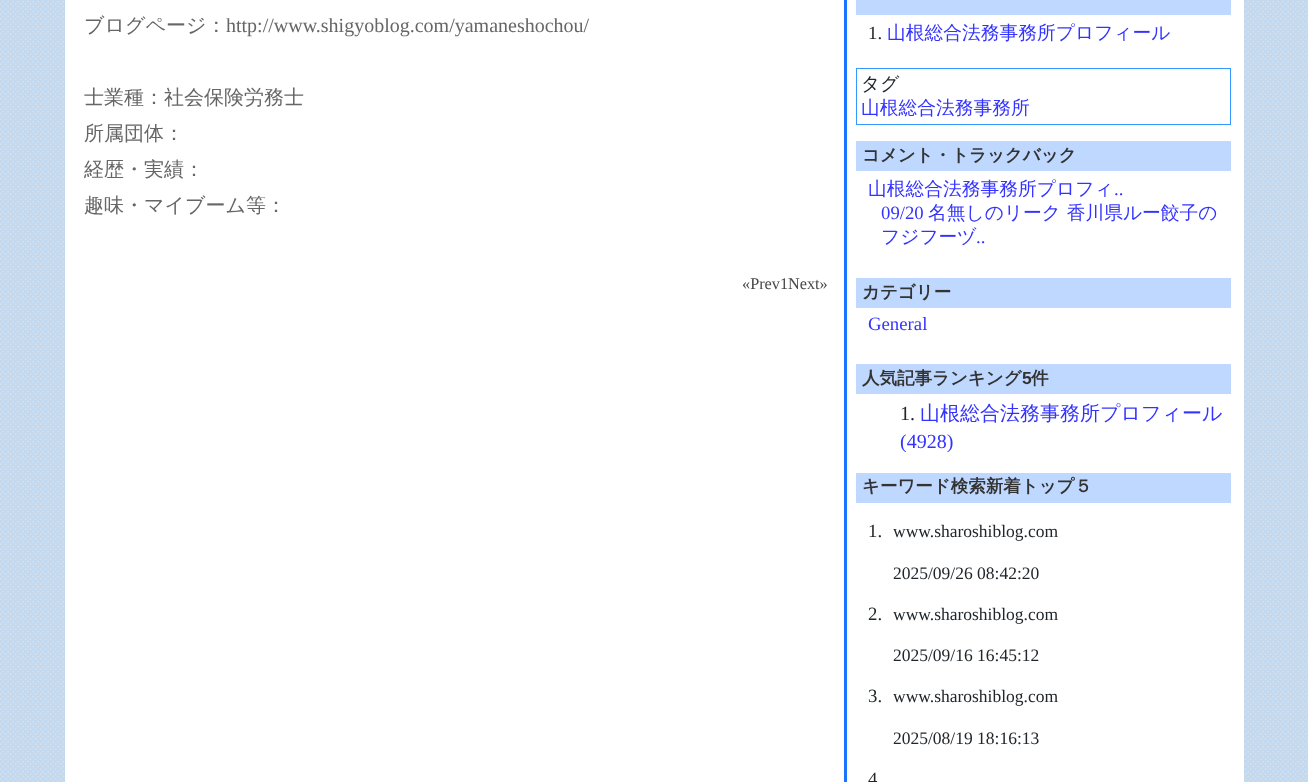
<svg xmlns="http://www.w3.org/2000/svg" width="1308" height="782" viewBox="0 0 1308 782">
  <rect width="100%" height="100%" fill="rgb(255,255,255)"/>
  <image x="0" y="0" width="1308" height="782" href="pic1.png"/>
  <rect x="65" y="0" width="1179" height="782" fill="rgb(255,255,255)"/>
  <rect x="844" y="0" width="3" height="782" fill="rgb(25,117,255)"/>
  <text x="84" y="32" font-family="WenQuanYi Zen Hei" font-size="20" font-weight="500" fill="rgb(102,102,102)">ブログページ：</text>
  <text x="226" y="32" font-family="Liberation Serif" font-size="20" fill="rgb(102,102,102)">http://www.shigyoblog.com/yamaneshochou/</text>
  <g font-family="WenQuanYi Zen Hei" font-size="20" font-weight="500" fill="rgb(102,102,102)">
    <text>
      <tspan x="84" y="104">士業種：社会保険労務士</tspan>
      <tspan x="84" y="140">所属団体：</tspan>
      <tspan x="84" y="176">経歴・実績：</tspan>
      <tspan x="84" y="212">趣味・マイブーム等：</tspan>
    </text>
  </g>
  <text x="742" y="289" font-family="Liberation Serif" font-size="16.25" fill="rgb(73,73,73)">«Prev1Next»</text>
  <rect x="856" y="0" width="375" height="15" fill="rgb(191,216,255)"/>
  <text x="868" y="39" font-family="Liberation Serif" font-size="18.75" fill="rgb(33,38,42)">1.</text>
  <text x="887" y="39" font-family="WenQuanYi Zen Hei" font-size="18.75" font-weight="500" fill="rgb(51,51,255)">山根総合法務事務所プロフィール</text>
  <rect x="856.5" y="68.5" width="374" height="56" fill="none" stroke="rgb(51,153,255)"/>
  <text x="861" y="90" font-family="WenQuanYi Zen Hei" font-size="18.75" font-weight="500" fill="rgb(33,38,42)">タグ</text>
  <text x="861" y="114" font-family="WenQuanYi Zen Hei" font-size="18.75" font-weight="500" fill="rgb(51,51,255)">山根総合法務事務所</text>
  <rect x="856" y="141" width="375" height="30" fill="rgb(191,216,255)"/>
  <text x="862" y="161" font-family="WenQuanYi Zen Hei" font-size="17.5" font-weight="bold" fill="rgb(51,51,51)">コメント・トラックバック</text>
  <text x="868" y="195" font-family="WenQuanYi Zen Hei" font-size="18.75" font-weight="500" fill="rgb(51,51,255)">山根総合法務事務所プロフィ</text>
  <g font-family="Liberation Serif" font-size="18.75" fill="rgb(51,51,255)">
    <text x="1114" y="195">..</text>
    <text x="881" y="219">09/20</text>
  </g>
  <g font-family="WenQuanYi Zen Hei" font-size="18.75" font-weight="500" fill="rgb(51,51,255)">
    <text x="928" y="219">名無しのリーク 香川県ルー餃子の</text>
    <text x="881" y="243">フジフーヅ</text>
  </g>
  <text x="976" y="243" font-family="Liberation Serif" font-size="18.75" fill="rgb(51,51,255)">..</text>
  <rect x="856" y="278" width="375" height="30" fill="rgb(191,216,255)"/>
  <text x="862" y="298" font-family="WenQuanYi Zen Hei" font-size="17.5" font-weight="bold" fill="rgb(51,51,51)">カテゴリー</text>
  <text x="868" y="330" font-family="Liberation Serif" font-size="18.75" fill="rgb(51,51,255)">General</text>
  <rect x="856" y="364" width="375" height="30" fill="rgb(191,216,255)"/>
  <text x="862" y="384" font-family="WenQuanYi Zen Hei" font-size="17.5" font-weight="bold" fill="rgb(51,51,51)">人気記事ランキング</text>
  <text x="1022" y="384" font-family="Liberation Sans" font-size="17.5" font-weight="bold" fill="rgb(51,51,51)">5</text>
  <text x="1031" y="384" font-family="WenQuanYi Zen Hei" font-size="17.5" font-weight="bold" fill="rgb(51,51,51)">件</text>
  <text x="900" y="420" font-family="Liberation Serif" font-size="20" fill="rgb(33,38,42)">1.</text>
  <text x="920" y="420" font-family="WenQuanYi Zen Hei" font-size="20" font-weight="500" fill="rgb(51,51,255)">山根総合法務事務所プロフィール</text>
  <text x="900" y="448" font-family="Liberation Serif" font-size="20" fill="rgb(51,51,255)">(4928)</text>
  <rect x="856" y="473" width="375" height="30" fill="rgb(191,216,255)"/>
  <text x="862" y="492" font-family="WenQuanYi Zen Hei" font-size="17.5" font-weight="bold" fill="rgb(51,51,51)">キーワード検索新着トップ５</text>
  <text x="868" y="537" font-family="Liberation Serif" font-size="18.75" fill="rgb(33,38,42)">1.</text>
  <g font-family="Liberation Serif" font-size="17.5" fill="rgb(33,38,42)">
    <text x="893" y="537">www.sharoshiblog.com</text>
    <text x="893" y="579">2025/09/26 08:42:20</text>
  </g>
  <text x="868" y="620" font-family="Liberation Serif" font-size="18.75" fill="rgb(33,38,42)">2.</text>
  <g font-family="Liberation Serif" font-size="17.5" fill="rgb(33,38,42)">
    <text x="893" y="620">www.sharoshiblog.com</text>
    <text x="893" y="661">2025/09/16 16:45:12</text>
  </g>
  <text x="868" y="702" font-family="Liberation Serif" font-size="18.75" fill="rgb(33,38,42)">3.</text>
  <g font-family="Liberation Serif" font-size="17.5" fill="rgb(33,38,42)">
    <text x="893" y="702">www.sharoshiblog.com</text>
    <text x="893" y="744">2025/08/19 18:16:13</text>
  </g>
  <text x="868" y="785" font-family="Liberation Serif" font-size="18.75" fill="rgb(33,38,42)">4</text>
</svg>
